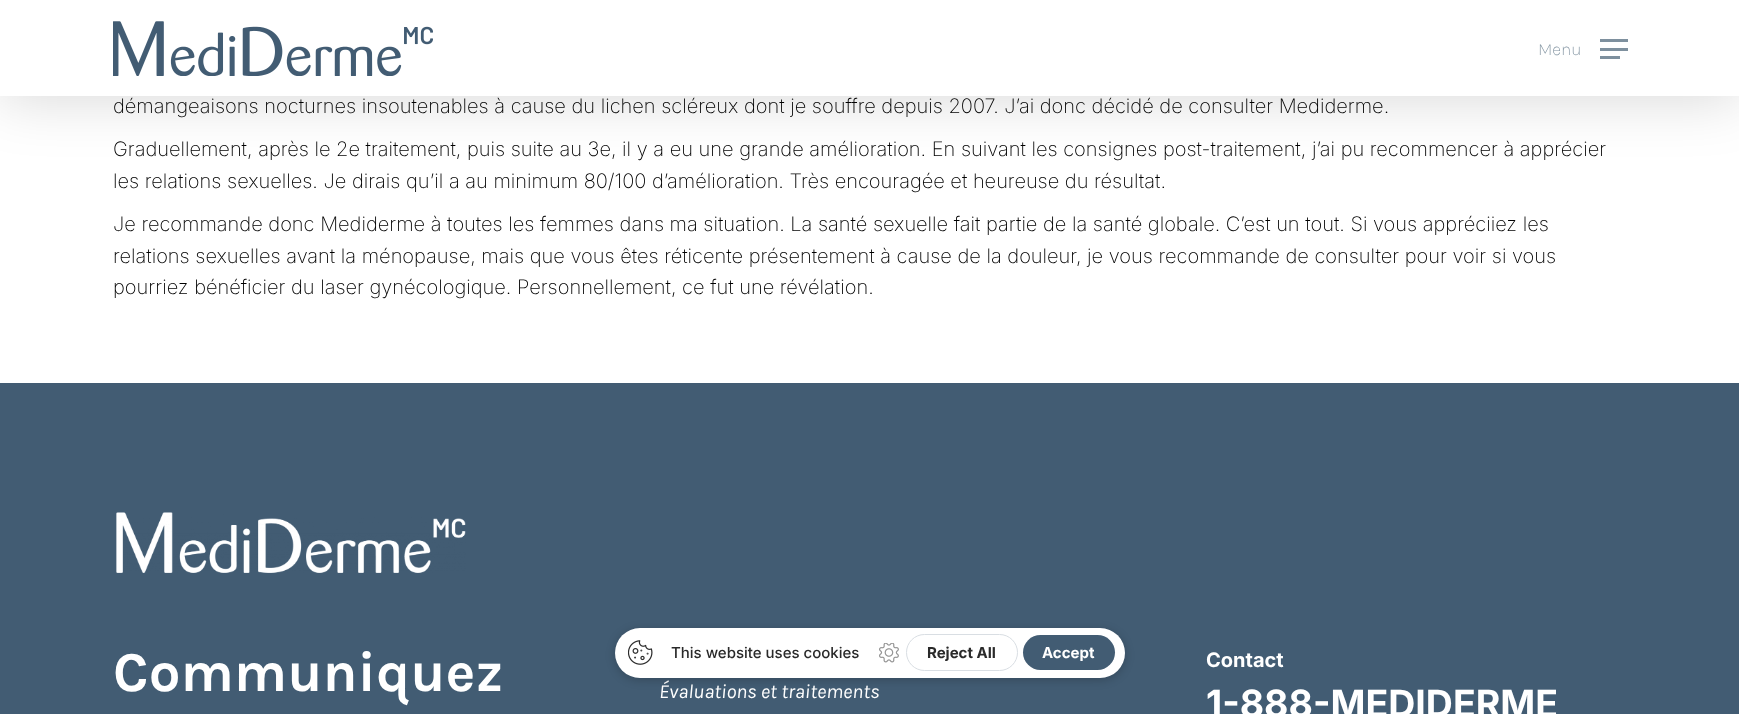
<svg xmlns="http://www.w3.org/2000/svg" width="1739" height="714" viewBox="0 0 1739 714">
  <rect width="100%" height="100%" fill="rgb(255,255,255)"/>
  <rect x="0" y="4" width="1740" height="96" fill="rgba(0,0,0,0.15)" filter="blur(28px)"/>
  <rect x="0" y="0" width="1739" height="96" fill="rgb(255,255,255)"/>
  <image x="113" y="21" width="320" height="55" href="pic1.png"/>
  <text x="1538" y="55" font-family="Karla" font-size="17.5" font-weight="200" fill="rgb(126,144,158)">Menu</text>
  <rect x="1600" y="39" width="28" height="3" fill="rgb(126,144,158)"/>
  <rect x="1600" y="56" width="20" height="3" fill="rgb(126,144,158)"/>
  <rect x="1600" y="48" width="28" height="3" fill="rgb(126,144,158)"/>
  <g font-family="Inter" font-size="20" font-weight="200" fill="rgb(0,0,0)">
    <text x="113" y="113">démangeaisons nocturnes insoutenables à cause du lichen scléreux dont je souffre depuis 2007. J’ai donc décidé de consulter Mediderme.</text>
    <text>
      <tspan x="113" y="156">Graduellement, après le 2e traitement, puis suite au 3e, il y a eu une grande amélioration. En suivant les consignes post-traitement, j’ai pu recommencer à apprécier</tspan>
      <tspan x="113" y="188">les relations sexuelles. Je dirais qu’il a au minimum 80/100 d’amélioration. Très encouragée et heureuse du résultat.</tspan>
    </text>
    <text>
      <tspan x="113" y="231">Je recommande donc Mediderme à toutes les femmes dans ma situation. La santé sexuelle fait partie de la santé globale. C’est un tout. Si vous appréciiez les</tspan>
      <tspan x="113" y="263">relations sexuelles avant la ménopause, mais que vous êtes réticente présentement à cause de la douleur, je vous recommande de consulter pour voir si vous</tspan>
      <tspan x="113" y="294">pourriez bénéficier du laser gynécologique. Personnellement, ce fut une révélation.</tspan>
    </text>
  </g>
  <rect x="0" y="383" width="1739" height="331" fill="rgb(66,92,115)"/>
  <image x="116" y="512" width="350" height="61" href="pic2.png"/>
  <text x="113" y="691" font-family="Karla" font-size="56.25" font-weight="bold" fill="rgb(255,255,255)">Communiquez</text>
  <text x="659" y="698" font-family="Karla" font-size="20" font-style="italic" fill="rgb(255,255,255)">Évaluations et traitements</text>
  <text x="1206" y="667" font-family="Inter" font-size="20" font-weight="bold" fill="rgb(255,255,255)">Contact</text>
  <text x="1206" y="717" font-family="Inter" font-size="37.5" font-weight="bold" fill="rgb(255,255,255)">1-888-MEDIDERME</text>
  <rect x="615" y="630" width="510" height="50" rx="25" fill="rgba(0,0,0,0.2)" filter="blur(5px)"/>
  <rect x="615" y="628" width="510" height="50" rx="25" fill="rgb(255,255,255)"/>
  <image x="628" y="640" width="25" height="25" href="pic3.png"/>
  <text x="671" y="658" font-family="Inter" font-size="15" font-weight="500" fill="rgb(42,42,42)">This website uses cookies</text>
  <image x="879" y="643" width="20" height="20" href="pic4.png"/>
  <rect x="906.5" y="634.5" width="111" height="36" rx="18" fill="none" stroke="rgb(217,222,227)"/>
  <text x="927" y="658" font-family="Inter" font-size="15" font-weight="bold" fill="rgb(42,42,42)">Reject All</text>
  <rect x="1023" y="635" width="92" height="35" rx="17.5" fill="rgb(66,92,115)"/>
  <text x="1042" y="658" font-family="Inter" font-size="15" font-weight="bold" fill="rgb(255,255,255)">Accept</text>
</svg>
